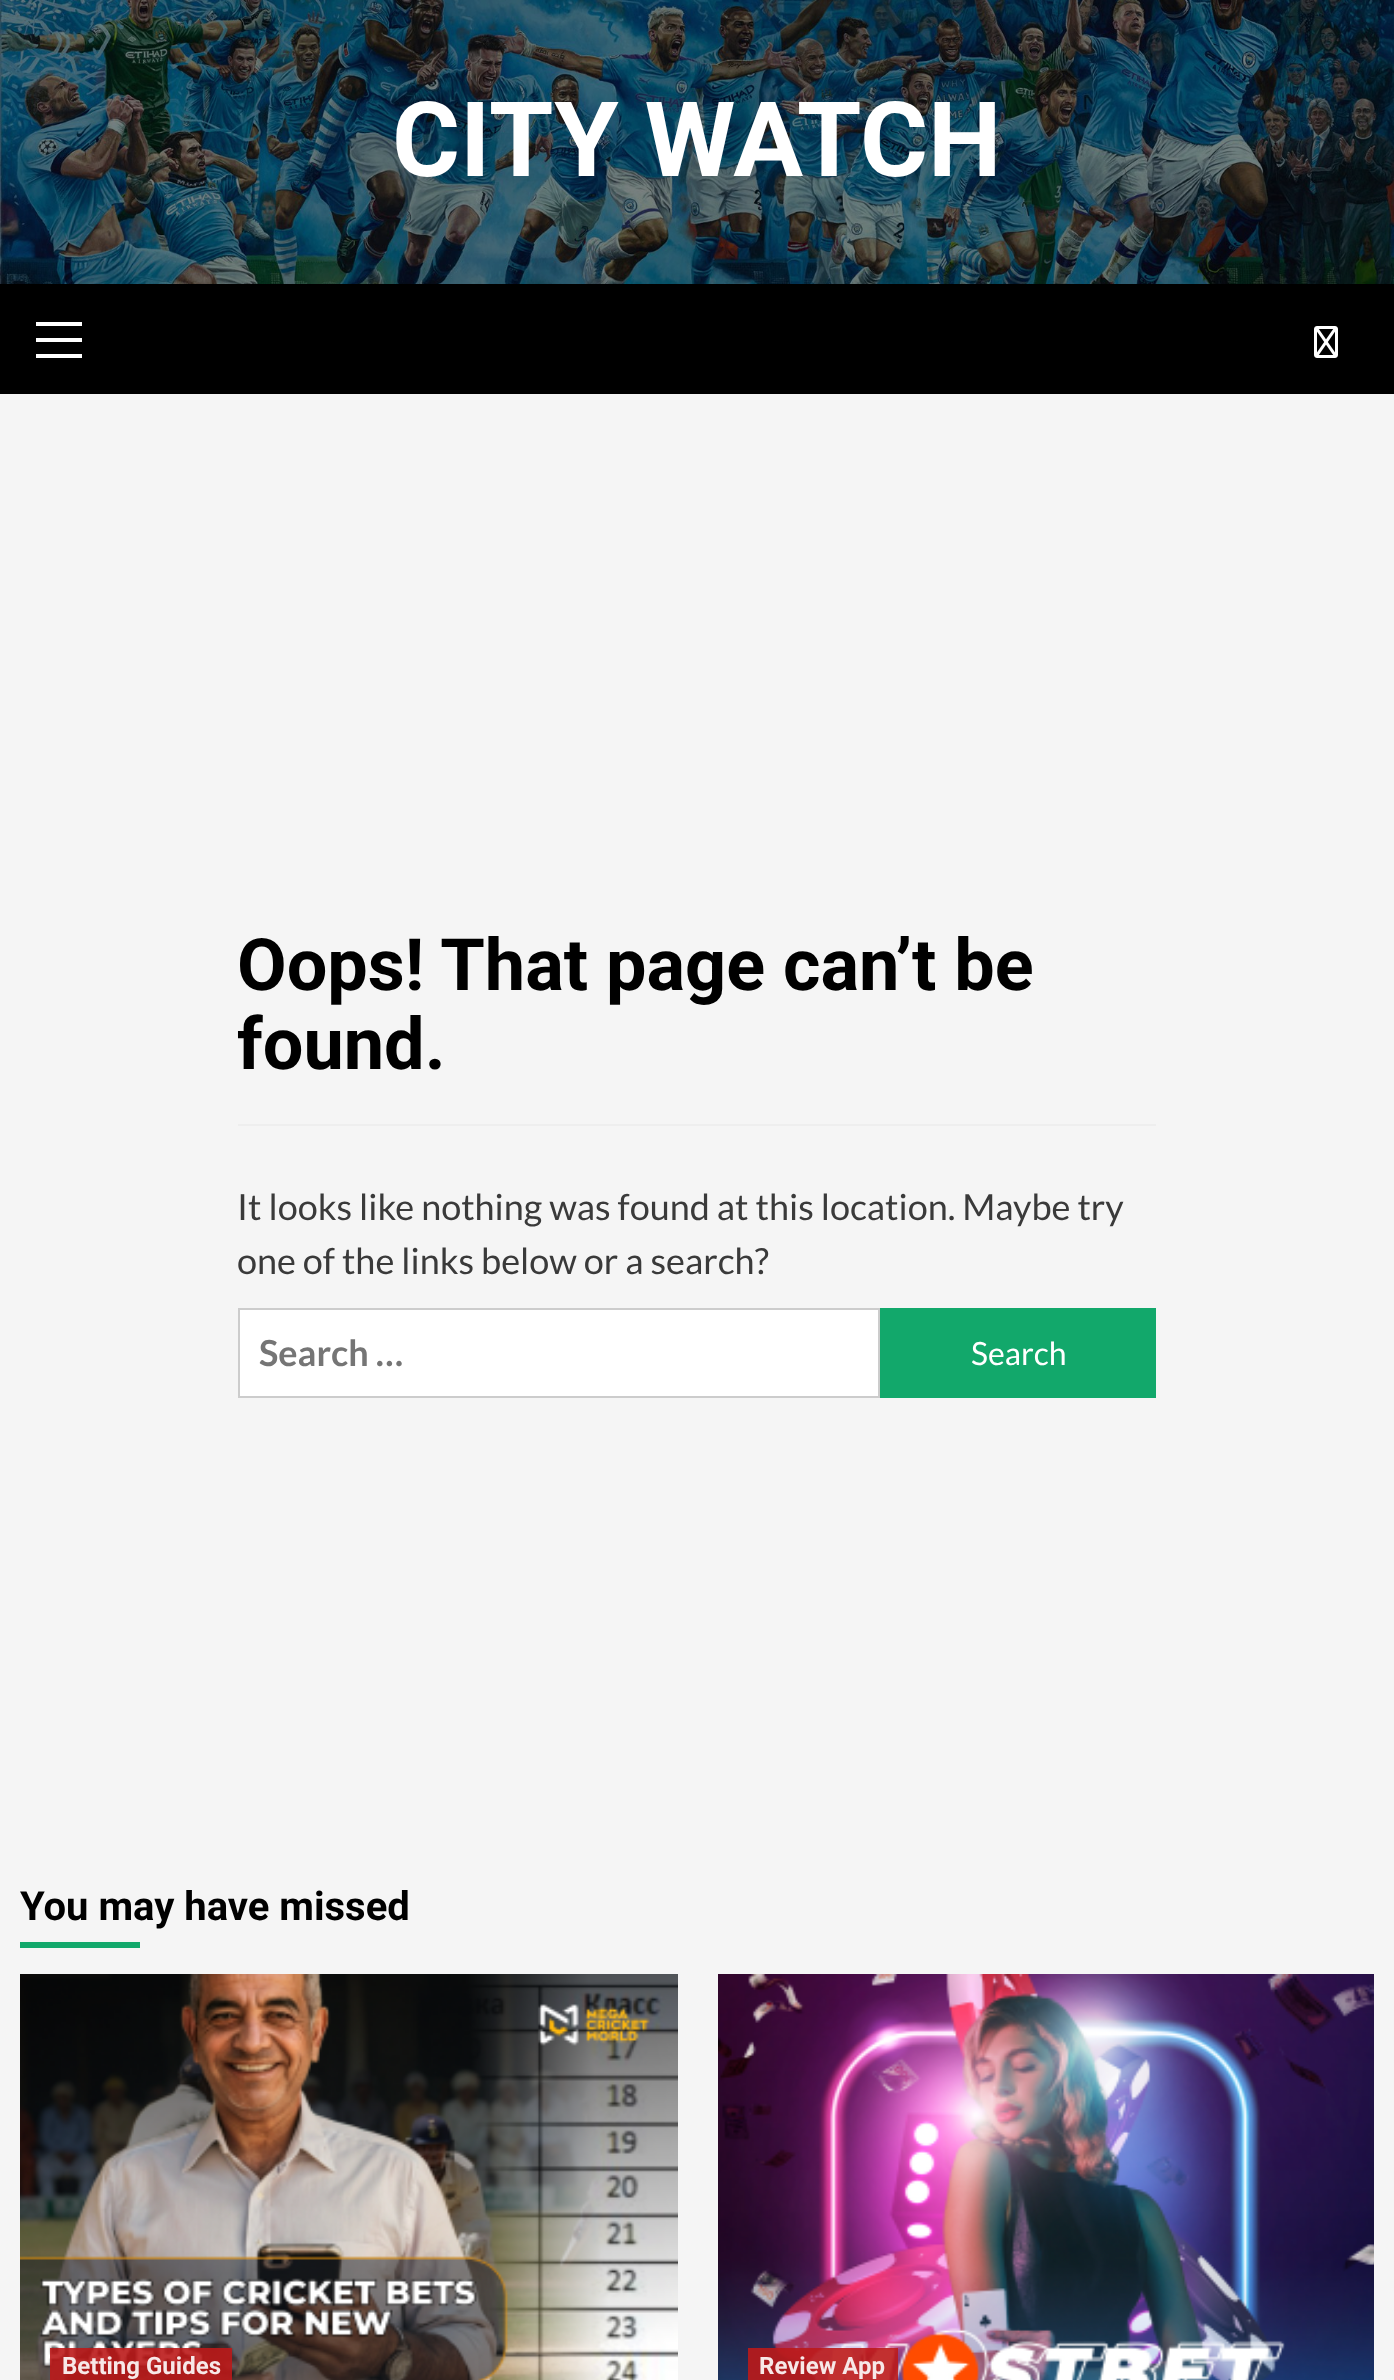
<svg xmlns="http://www.w3.org/2000/svg" width="1394" height="2380" viewBox="0 0 1394 2380">
  <rect width="100%" height="100%" fill="rgb(245,245,245)"/>
  <image x="0" y="0" width="1394" height="284" href="pic1.png"/>
  <text x="392" y="176" font-family="Roboto" font-size="104" font-weight="bold" fill="rgb(255,255,255)">CITY WATCH</text>
  <rect x="0" y="284" width="1394" height="110" fill="rgb(0,0,0)"/>
  <rect x="36" y="338" width="46" height="4" fill="rgb(255,255,255)"/>
  <rect x="36" y="322" width="46" height="4" fill="rgb(255,255,255)"/>
  <rect x="36" y="354" width="46" height="4" fill="rgb(255,255,255)"/>
  <image x="1314" y="326" width="24" height="32" href="pic2.png"/>
  <rect x="238" y="1124" width="918" height="2" fill="rgb(238,238,238)"/>
  <g font-family="Roboto" font-size="72" font-weight="bold" fill="rgb(0,0,0)">
    <text>
      <tspan x="237" y="990">Oops! That page can’t be</tspan>
      <tspan x="237" y="1069">found.</tspan>
    </text>
  </g>
  <g font-family="Lato" font-size="36" fill="rgb(58,58,58)">
    <text>
      <tspan x="237" y="1220">It looks like nothing was found at this location. Maybe try</tspan>
      <tspan x="237" y="1274">one of the links below or a search?</tspan>
    </text>
  </g>
  <rect x="239" y="1309" width="640" height="88" fill="rgb(255,255,255)" stroke="rgb(204,204,204)" stroke-width="2"/>
  <text x="259" y="1366" font-family="Lato" font-size="36" font-weight="bold" fill="rgb(117,117,117)">Search …</text>
  <rect x="880" y="1308" width="276" height="90" fill="rgb(18,168,107)"/>
  <text x="971" y="1365" font-family="Lato" font-size="32" fill="rgb(255,255,255)">Search</text>
  <text x="20" y="1920" font-family="Roboto" font-size="40" font-weight="bold" fill="rgb(0,0,0)">You may have missed</text>
  <rect x="20" y="1942" width="120" height="6" fill="rgb(18,168,107)"/>
  <image x="20" y="1974" width="658" height="406" href="pic3.png"/>
  <rect x="50" y="2348" width="182" height="32" fill="rgba(187,25,25,0.9)"/>
  <text x="62" y="2374" font-family="Roboto" font-size="24" font-weight="bold" fill="rgb(247,232,232)">Betting Guides</text>
  <image x="718" y="1974" width="656" height="406" href="pic4.png"/>
  <rect x="748" y="2348" width="150" height="32" fill="rgba(187,25,25,0.9)"/>
  <text x="759" y="2374" font-family="Roboto" font-size="24" font-weight="bold" fill="rgb(247,232,232)">Review App</text>
</svg>
